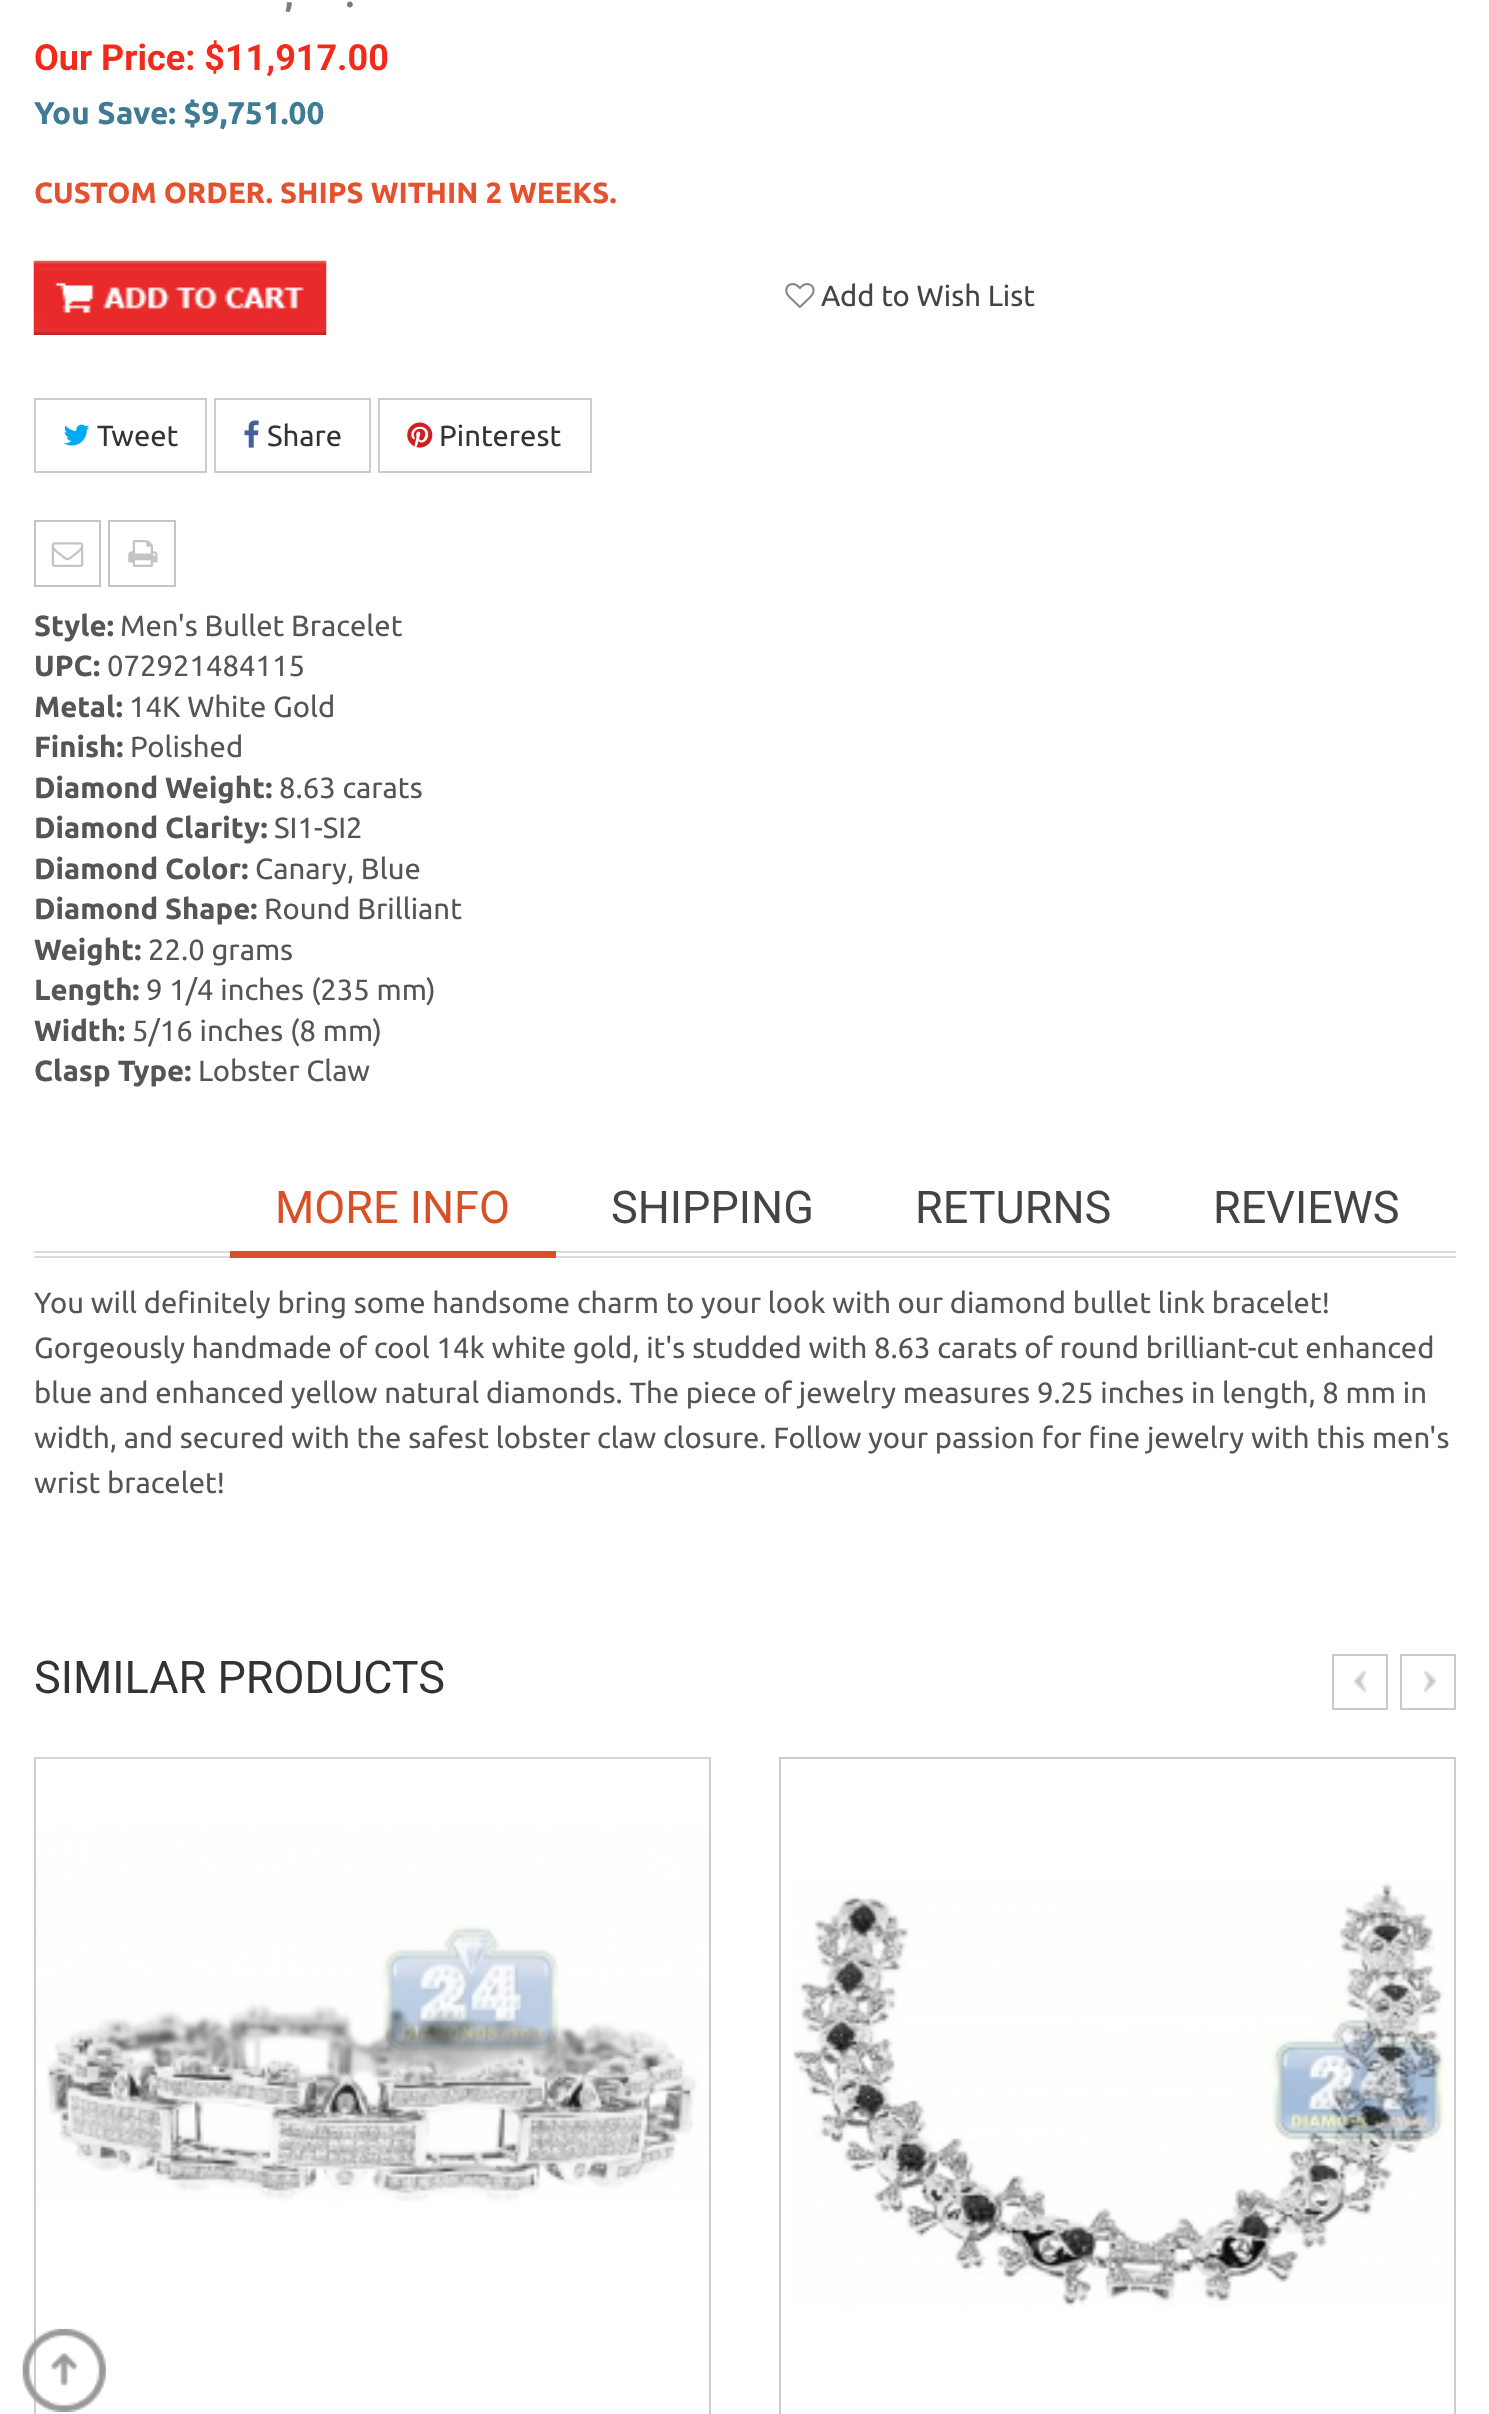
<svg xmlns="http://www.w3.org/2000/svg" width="1489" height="2414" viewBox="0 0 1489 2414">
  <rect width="100%" height="100%" fill="rgb(255,255,255)"/>
  <g font-family="Ubuntu" font-size="31.5" font-weight="bold" fill="rgb(125,125,125)">
    <text x="285" y="7">,</text>
    <text x="346" y="7">.</text>
  </g>
  <text x="34" y="70" font-family="Roboto" font-size="36" font-weight="bold" fill="rgb(240,43,28)">Our Price: $11,917.00</text>
  <text x="34" y="124" font-family="Ubuntu" font-size="31.5" font-weight="bold" fill="rgb(61,124,147)">You Save: $9,751.00</text>
  <text x="34" y="203" font-family="Ubuntu" font-size="29.25" font-weight="bold" fill="rgb(229,81,46)">CUSTOM ORDER. SHIPS WITHIN 2 WEEKS.</text>
  <image x="33" y="260" width="294" height="75" href="pic1.png"/>
  <image x="785" y="283" width="30" height="25" href="pic2.png"/>
  <text x="821" y="306" font-family="Ubuntu" font-size="29.25" fill="rgb(68,68,68)">Add to Wish List</text>
  <rect x="35" y="399" width="171" height="73" fill="none" stroke="rgb(204,204,204)" stroke-width="2"/>
  <image x="64" y="424" width="26" height="22" href="pic3.png"/>
  <text x="97" y="446" font-family="Ubuntu" font-size="29.25" fill="rgb(51,51,51)">Tweet</text>
  <rect x="215" y="399" width="155" height="73" fill="none" stroke="rgb(204,204,204)" stroke-width="2"/>
  <image x="244" y="420" width="15" height="28" href="pic4.png"/>
  <text x="267" y="446" font-family="Ubuntu" font-size="29.25" fill="rgb(51,51,51)">Share</text>
  <rect x="379" y="399" width="212" height="73" fill="none" stroke="rgb(204,204,204)" stroke-width="2"/>
  <image x="407" y="422" width="26" height="26" href="pic5.png"/>
  <text x="439" y="446" font-family="Ubuntu" font-size="29.25" fill="rgb(51,51,51)">Pinterest</text>
  <rect x="35" y="521" width="65" height="65" fill="none" stroke="rgb(196,196,196)" stroke-width="2"/>
  <image x="51" y="542" width="33" height="25" href="pic6.png"/>
  <rect x="109" y="521" width="66" height="65" fill="none" stroke="rgb(196,196,196)" stroke-width="2"/>
  <image x="128" y="540" width="30" height="27" href="pic7.png"/>
  <text x="34" y="636" font-family="Ubuntu" font-size="29.25" font-weight="bold" fill="rgb(85,85,85)">Style:</text>
  <text x="120" y="636" font-family="Ubuntu" font-size="29.25" fill="rgb(85,85,85)">Men's Bullet Bracelet</text>
  <text x="34" y="676" font-family="Ubuntu" font-size="29.25" font-weight="bold" fill="rgb(85,85,85)">UPC:</text>
  <text x="107" y="676" font-family="Ubuntu" font-size="29.25" fill="rgb(85,85,85)">072921484115</text>
  <text x="34" y="717" font-family="Ubuntu" font-size="29.25" font-weight="bold" fill="rgb(85,85,85)">Metal:</text>
  <text x="129" y="717" font-family="Ubuntu" font-size="29.25" fill="rgb(85,85,85)">14K White Gold</text>
  <text x="34" y="757" font-family="Ubuntu" font-size="29.25" font-weight="bold" fill="rgb(85,85,85)">Finish:</text>
  <text x="130" y="757" font-family="Ubuntu" font-size="29.25" fill="rgb(85,85,85)">Polished</text>
  <text x="34" y="798" font-family="Ubuntu" font-size="29.25" font-weight="bold" fill="rgb(85,85,85)">Diamond Weight:</text>
  <text x="279" y="798" font-family="Ubuntu" font-size="29.25" fill="rgb(85,85,85)">8.63 carats</text>
  <text x="34" y="838" font-family="Ubuntu" font-size="29.25" font-weight="bold" fill="rgb(85,85,85)">Diamond Clarity:</text>
  <text x="274" y="838" font-family="Ubuntu" font-size="29.25" fill="rgb(85,85,85)">SI1-SI2</text>
  <text x="34" y="879" font-family="Ubuntu" font-size="29.25" font-weight="bold" fill="rgb(85,85,85)">Diamond Color:</text>
  <text x="255" y="879" font-family="Ubuntu" font-size="29.25" fill="rgb(85,85,85)">Canary, Blue</text>
  <text x="34" y="919" font-family="Ubuntu" font-size="29.25" font-weight="bold" fill="rgb(85,85,85)">Diamond Shape:</text>
  <text x="264" y="919" font-family="Ubuntu" font-size="29.25" fill="rgb(85,85,85)">Round Brilliant</text>
  <text x="34" y="960" font-family="Ubuntu" font-size="29.25" font-weight="bold" fill="rgb(85,85,85)">Weight:</text>
  <text x="148" y="960" font-family="Ubuntu" font-size="29.25" fill="rgb(85,85,85)">22.0 grams</text>
  <text x="34" y="1000" font-family="Ubuntu" font-size="29.25" font-weight="bold" fill="rgb(85,85,85)">Length:</text>
  <text x="146" y="1000" font-family="Ubuntu" font-size="29.25" fill="rgb(85,85,85)">9 1/4 inches (235 mm)</text>
  <text x="34" y="1041" font-family="Ubuntu" font-size="29.25" font-weight="bold" fill="rgb(85,85,85)">Width:</text>
  <text x="132" y="1041" font-family="Ubuntu" font-size="29.25" fill="rgb(85,85,85)">5/16 inches (8 mm)</text>
  <text x="34" y="1081" font-family="Ubuntu" font-size="29.25" font-weight="bold" fill="rgb(85,85,85)">Clasp Type:</text>
  <text x="198" y="1081" font-family="Ubuntu" font-size="29.25" fill="rgb(85,85,85)">Lobster Claw</text>
  <rect x="34" y="1251" width="1422" height="2" fill="rgb(219,219,219)"/>
  <rect x="34" y="1256" width="1422" height="2" fill="rgb(219,219,219)"/>
  <rect x="230" y="1251" width="326" height="7" fill="rgb(217,80,38)"/>
  <text x="275" y="1223" font-family="Roboto" font-size="45" fill="rgb(217,80,38)">MORE INFO</text>
  <g font-family="Roboto" font-size="45" fill="rgb(68,68,68)">
    <text x="611" y="1223">SHIPPING</text>
    <text x="915" y="1223">RETURNS</text>
    <text x="1213" y="1223">REVIEWS</text>
  </g>
  <g font-family="Ubuntu" font-size="29.25" fill="rgb(85,85,85)">
    <text>
      <tspan x="34" y="1313">You will definitely bring some handsome charm to your look with our diamond bullet link bracelet!</tspan>
      <tspan x="34" y="1358">Gorgeously handmade of cool 14k white gold, it's studded with 8.63 carats of round brilliant-cut enhanced</tspan>
      <tspan x="34" y="1403">blue and enhanced yellow natural diamonds. The piece of jewelry measures 9.25 inches in length, 8 mm in</tspan>
      <tspan x="34" y="1448">width, and secured with the safest lobster claw closure. Follow your passion for fine jewelry with this men's</tspan>
      <tspan x="34" y="1493">wrist bracelet!</tspan>
    </text>
  </g>
  <image x="1354" y="1669" width="13" height="24" href="pic8.png"/>
  <rect x="1333" y="1655" width="54" height="54" fill="none" stroke="rgb(202,202,202)" stroke-width="2"/>
  <image x="1423" y="1669" width="13" height="24" href="pic9.png"/>
  <rect x="1401" y="1655" width="54" height="54" fill="none" stroke="rgb(202,202,202)" stroke-width="2"/>
  <rect x="35" y="1758" width="675" height="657" fill="none" stroke="rgb(204,204,204)" stroke-width="2"/>
  <image x="36" y="1757" width="673" height="445" href="pic10.png"/>
  <rect x="780" y="1758" width="675" height="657" fill="none" stroke="rgb(204,204,204)" stroke-width="2"/>
  <image x="792" y="1882" width="661" height="425" href="pic11.png"/>
  <text x="34" y="1693" font-family="Roboto" font-size="45" fill="rgb(51,51,51)">SIMILAR PRODUCTS</text>
  <image x="22" y="2328" width="84" height="84" href="pic12.png"/>
</svg>
